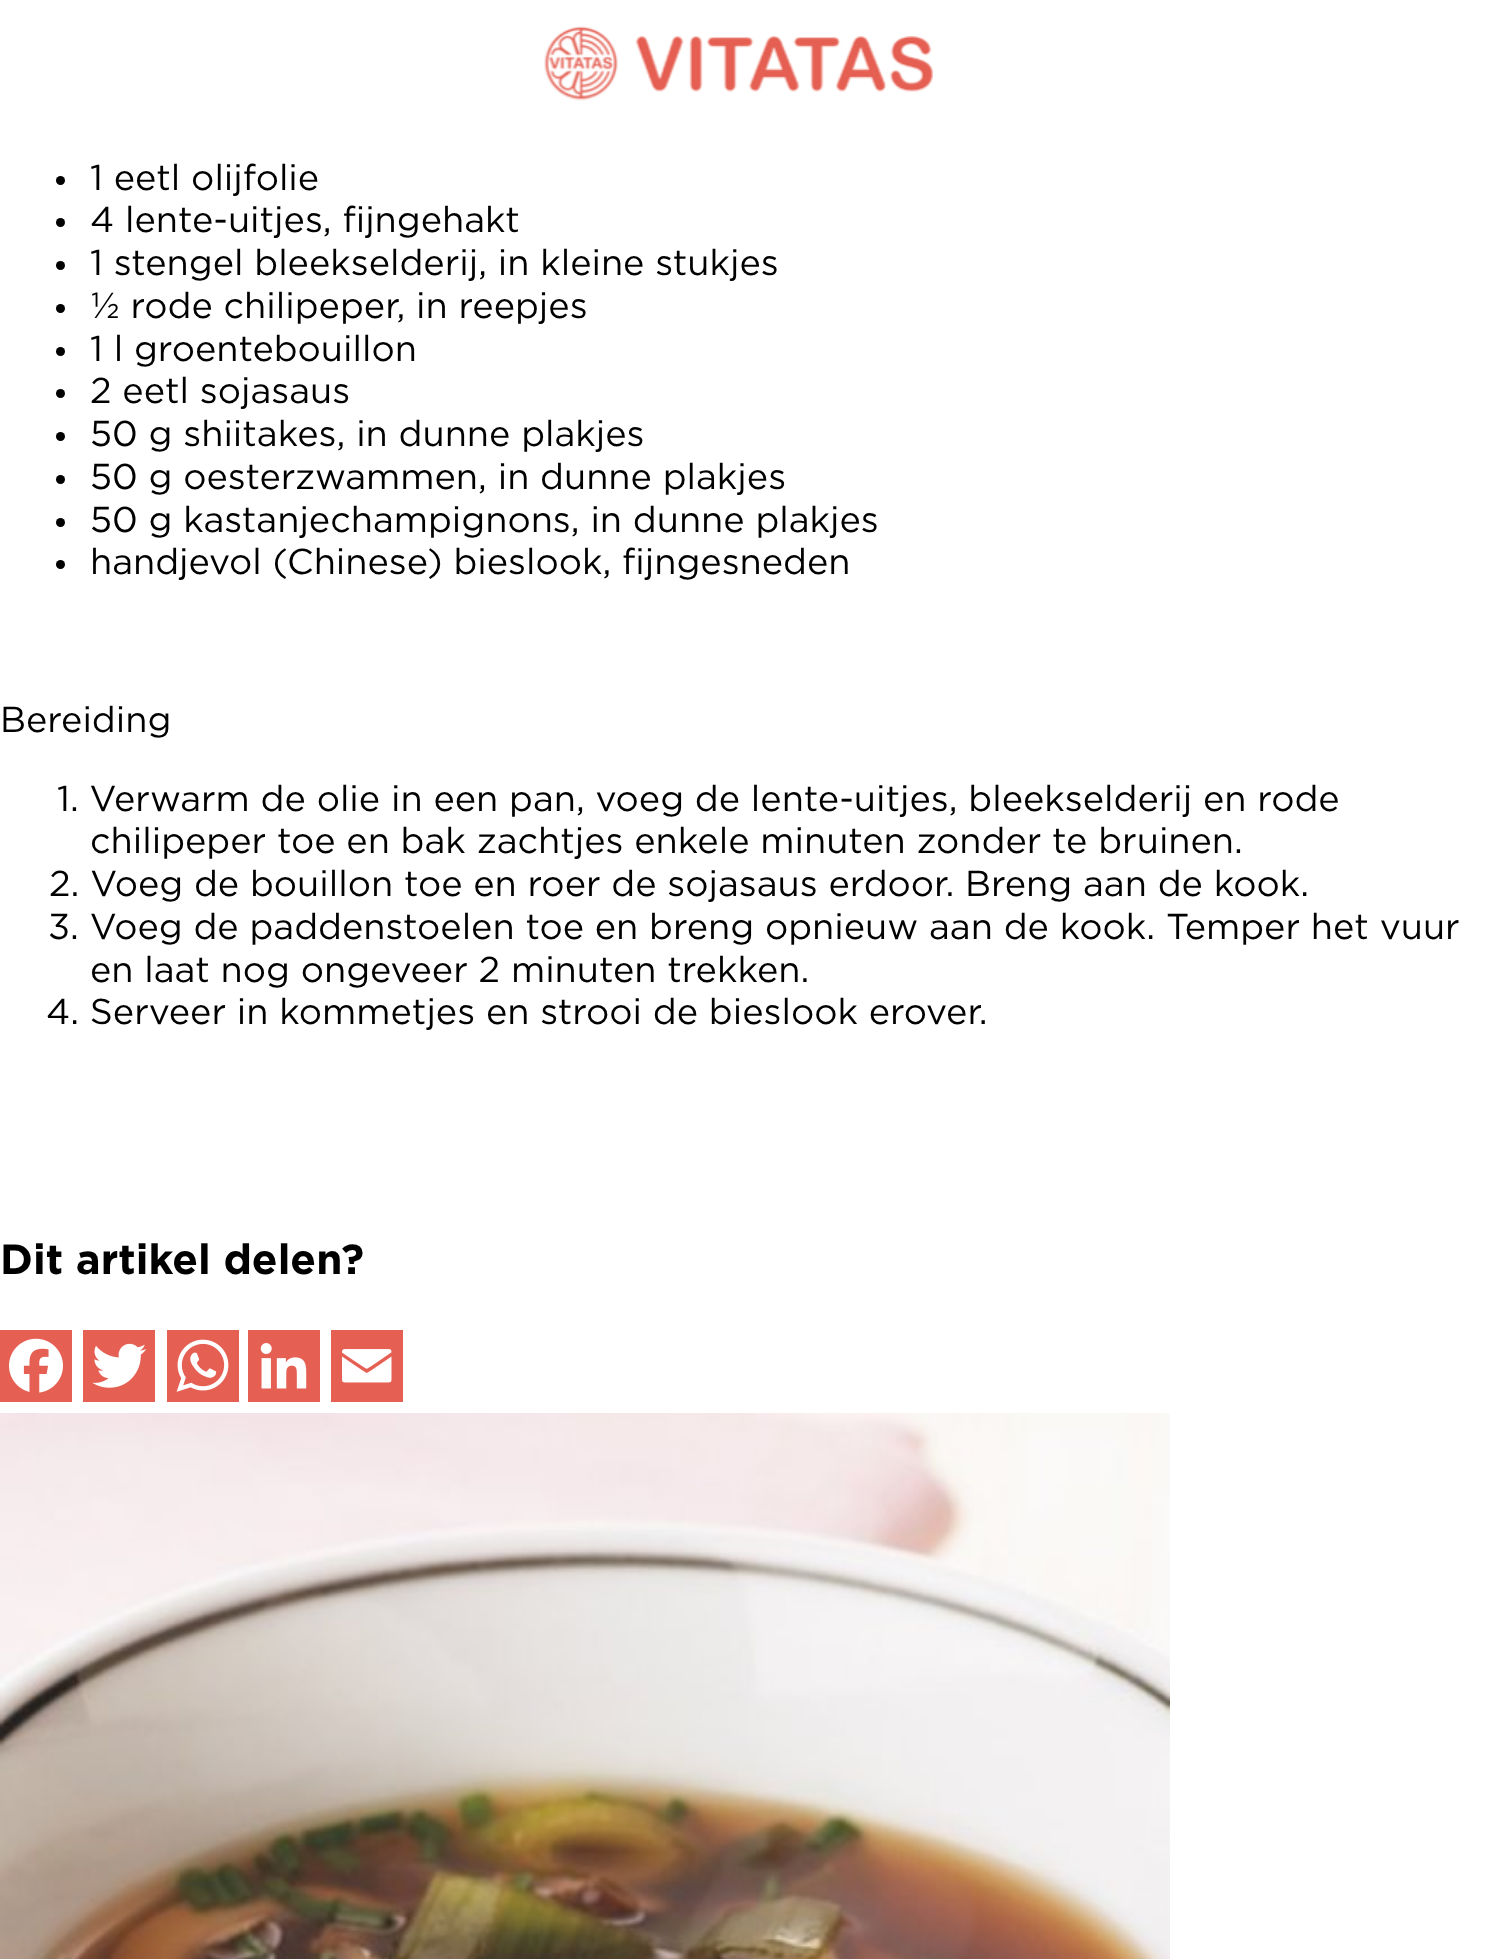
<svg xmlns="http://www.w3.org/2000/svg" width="1498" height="1959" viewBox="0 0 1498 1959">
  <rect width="100%" height="100%" fill="rgb(255,255,255)"/>
  <image x="544" y="26" width="389" height="75" href="pic1.png"/>
  <circle cx="60.5" cy="180.5" r="4.5" fill="rgb(0,0,0)"/>
  <text x="90" y="190" font-family="Gotham" font-size="36" fill="rgb(0,0,0)">1 eetl olijfolie</text>
  <circle cx="60.5" cy="222.5" r="4.5" fill="rgb(0,0,0)"/>
  <text x="90" y="232" font-family="Gotham" font-size="36" fill="rgb(0,0,0)">4 lente-uitjes, fijngehakt</text>
  <circle cx="60.5" cy="265.5" r="4.5" fill="rgb(0,0,0)"/>
  <text x="90" y="275" font-family="Gotham" font-size="36" fill="rgb(0,0,0)">1 stengel bleekselderij, in kleine stukjes</text>
  <circle cx="60.5" cy="308.5" r="4.5" fill="rgb(0,0,0)"/>
  <text x="90" y="318" font-family="Gotham" font-size="36" fill="rgb(0,0,0)">½ rode chilipeper, in reepjes</text>
  <circle cx="60.5" cy="351.5" r="4.5" fill="rgb(0,0,0)"/>
  <text x="90" y="361" font-family="Gotham" font-size="36" fill="rgb(0,0,0)">1 l groentebouillon</text>
  <circle cx="60.5" cy="393.5" r="4.5" fill="rgb(0,0,0)"/>
  <text x="90" y="403" font-family="Gotham" font-size="36" fill="rgb(0,0,0)">2 eetl sojasaus</text>
  <circle cx="60.5" cy="436.5" r="4.5" fill="rgb(0,0,0)"/>
  <text x="90" y="446" font-family="Gotham" font-size="36" fill="rgb(0,0,0)">50 g shiitakes, in dunne plakjes</text>
  <circle cx="60.5" cy="479.5" r="4.5" fill="rgb(0,0,0)"/>
  <text x="90" y="489" font-family="Gotham" font-size="36" fill="rgb(0,0,0)">50 g oesterzwammen, in dunne plakjes</text>
  <circle cx="60.5" cy="522.5" r="4.5" fill="rgb(0,0,0)"/>
  <text x="90" y="532" font-family="Gotham" font-size="36" fill="rgb(0,0,0)">50 g kastanjechampignons, in dunne plakjes</text>
  <circle cx="60.5" cy="564.5" r="4.5" fill="rgb(0,0,0)"/>
  <g font-family="Gotham" font-size="36" fill="rgb(0,0,0)">
    <text x="90" y="574">handjevol (Chinese) bieslook, fijngesneden</text>
    <text x="0" y="732">Bereiding</text>
    <text x="57" y="811">1. Verwarm de olie in een pan, voeg de lente-uitjes, bleekselderij en rode</text>
    <text x="90" y="853">chilipeper toe en bak zachtjes enkele minuten zonder te bruinen.</text>
    <text x="49" y="896">2. Voeg de bouillon toe en roer de sojasaus erdoor. Breng aan de kook.</text>
    <text x="48" y="939">3. Voeg de paddenstoelen toe en breng opnieuw aan de kook. Temper het vuur</text>
    <text x="90" y="982">en laat nog ongeveer 2 minuten trekken.</text>
    <text x="46" y="1024">4. Serveer in kommetjes en strooi de bieslook erover.</text>
  </g>
  <text x="0" y="1274" font-family="Gotham" font-size="42.1" font-weight="bold" fill="rgb(0,0,0)">Dit artikel delen?</text>
  <rect x="0" y="1330" width="72" height="72" fill="rgb(229,95,83)"/>
  <rect x="83" y="1330" width="72" height="72" fill="rgb(229,95,83)"/>
  <rect x="167" y="1330" width="72" height="72" fill="rgb(229,95,83)"/>
  <rect x="248" y="1330" width="72" height="72" fill="rgb(229,95,83)"/>
  <rect x="331" y="1330" width="72" height="72" fill="rgb(229,95,83)"/>
  <image x="9" y="1338" width="54" height="55" href="pic2.png"/>
  <image x="92" y="1343" width="55" height="45" href="pic3.png"/>
  <image x="176" y="1339" width="53" height="53" href="pic4.png"/>
  <image x="260" y="1343" width="47" height="46" href="pic5.png"/>
  <image x="342" y="1349" width="50" height="34" href="pic6.png"/>
  <image x="0" y="1413" width="1170" height="546" href="pic7.png"/>
</svg>
